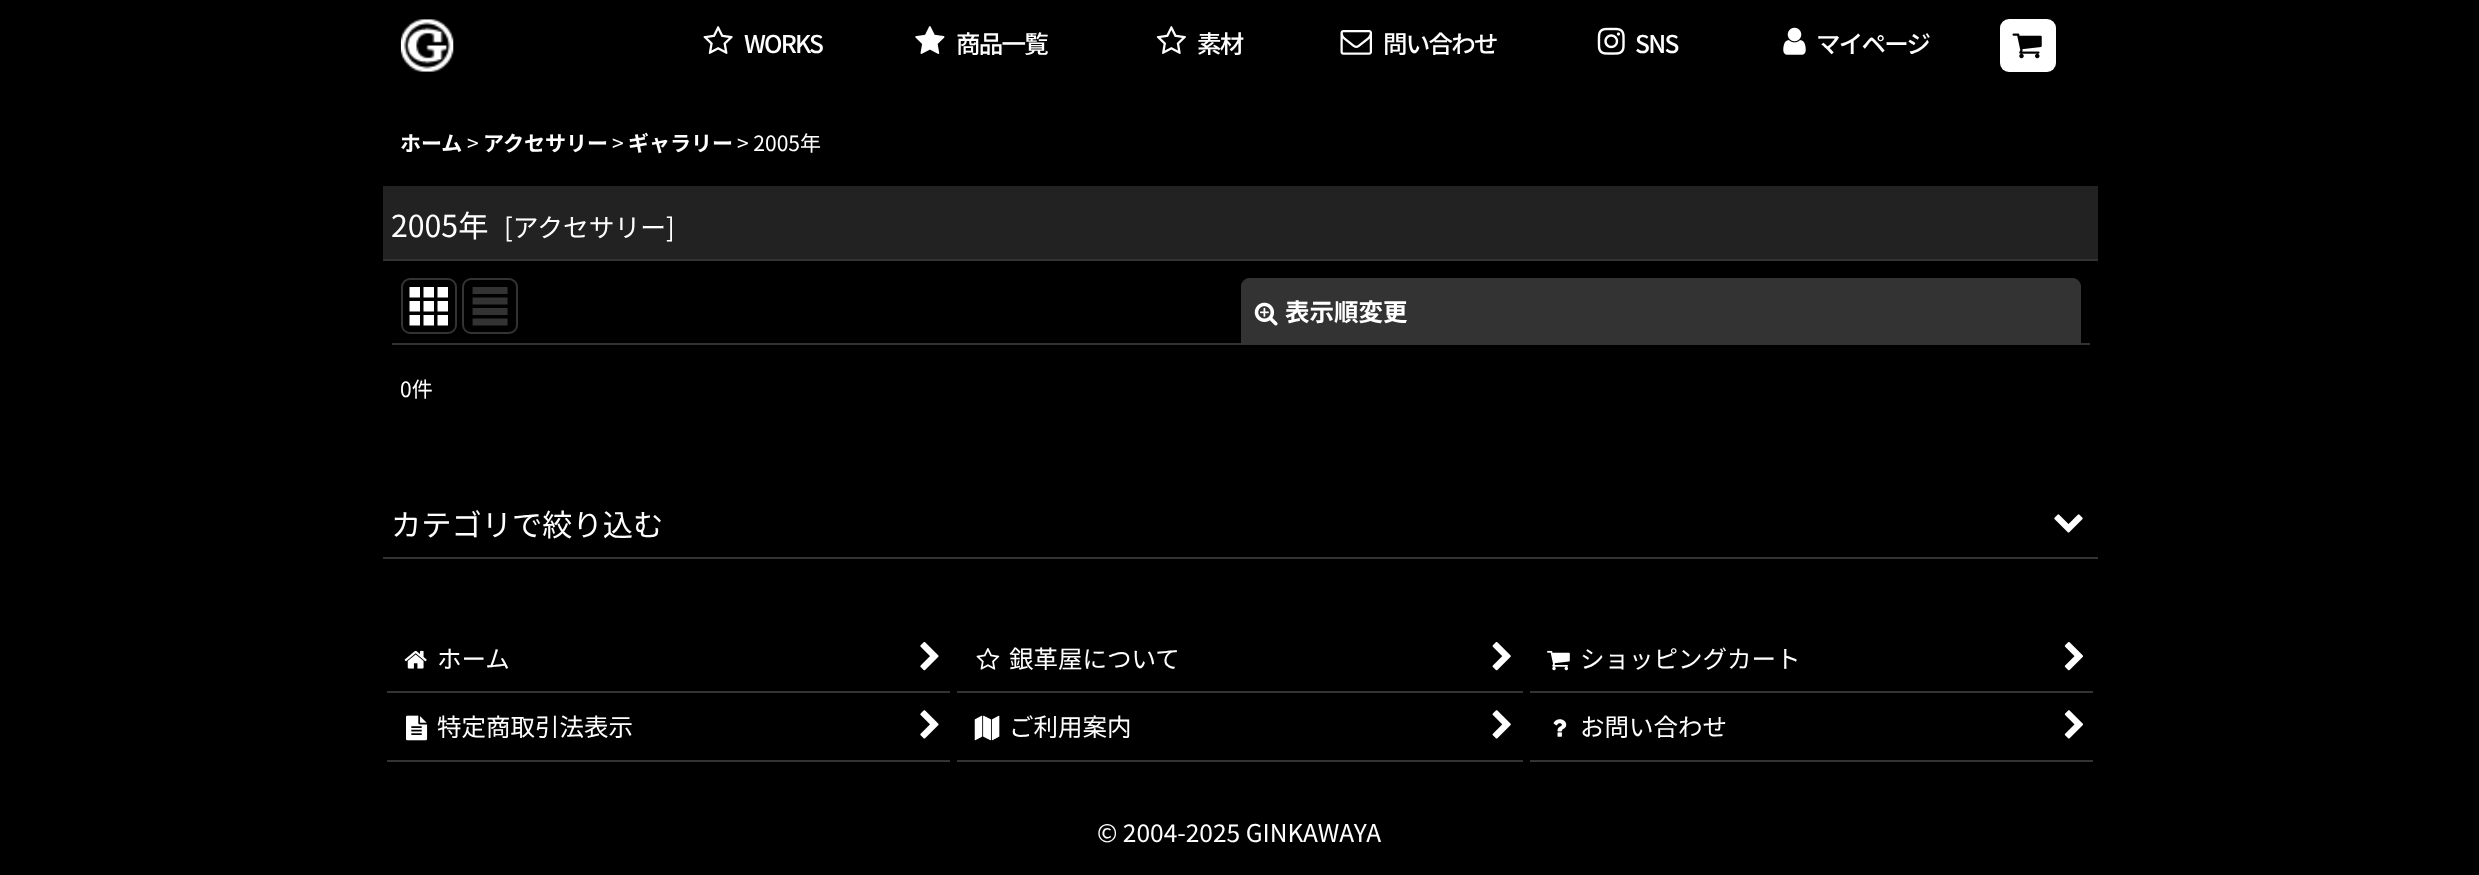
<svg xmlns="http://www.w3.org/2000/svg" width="2479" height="875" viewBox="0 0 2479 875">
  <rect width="100%" height="100%" fill="rgb(0,0,0)"/>
  <image x="400" y="19" width="54" height="53" href="pic1.png"/>
  <image x="703" y="26" width="30" height="28" href="pic2.png"/>
  <text x="744" y="53" font-family="Noto Sans JP" font-size="24.5" font-weight="500" letter-spacing="-1.75" fill="rgb(255,255,255)">WORKS</text>
  <image x="915" y="26" width="30" height="28" href="pic3.png"/>
  <text x="956" y="53" font-family="Noto Sans JP" font-size="24.5" font-weight="500" letter-spacing="-1.75" fill="rgb(255,255,255)">商品一覧</text>
  <image x="1156" y="26" width="30" height="28" href="pic4.png"/>
  <text x="1197" y="53" font-family="Noto Sans JP" font-size="24.5" font-weight="500" letter-spacing="-1.75" fill="rgb(255,255,255)">素材</text>
  <image x="1340" y="30" width="32" height="25" href="pic5.png"/>
  <text x="1383" y="53" font-family="Noto Sans JP" font-size="24.5" font-weight="500" letter-spacing="-1.75" fill="rgb(255,255,255)">問い合わせ</text>
  <image x="1597" y="27" width="28" height="28" href="pic6.png"/>
  <text x="1635" y="53" font-family="Noto Sans JP" font-size="24.5" font-weight="500" letter-spacing="-1.75" fill="rgb(255,255,255)">SNS</text>
  <image x="1783" y="27" width="23" height="28" href="pic7.png"/>
  <text x="1816" y="53" font-family="Noto Sans JP" font-size="24.5" font-weight="500" letter-spacing="-1.75" fill="rgb(255,255,255)">マイページ</text>
  <rect x="2000" y="19" width="56" height="53" rx="9" fill="rgb(255,255,255)"/>
  <image x="2012" y="33" width="30" height="26" href="pic8.png"/>
  <text x="400" y="151" font-family="Noto Sans JP" font-size="21" font-weight="bold" fill="rgb(255,255,255)">ホーム</text>
  <text x="467" y="151" font-family="Noto Sans JP" font-size="21" fill="rgb(255,255,255)">&gt;</text>
  <text x="483" y="151" font-family="Noto Sans JP" font-size="21" font-weight="bold" fill="rgb(255,255,255)">アクセサリー</text>
  <text x="612" y="151" font-family="Noto Sans JP" font-size="21" fill="rgb(255,255,255)">&gt;</text>
  <text x="628" y="151" font-family="Noto Sans JP" font-size="21" font-weight="bold" fill="rgb(255,255,255)">ギャラリー</text>
  <text x="737" y="151" font-family="Noto Sans JP" font-size="21" fill="rgb(255,255,255)">&gt; 2005年</text>
  <rect x="383" y="186" width="1715" height="73" fill="rgb(34,34,34)"/>
  <rect x="383" y="259" width="1715" height="2" fill="rgb(51,51,51)"/>
  <text x="391" y="237" font-family="Noto Sans JP" font-size="30.25" fill="rgb(255,255,255)">2005年</text>
  <text x="504" y="237" font-family="Noto Sans JP" font-size="25.75" fill="rgb(255,255,255)">[アクセサリー]</text>
  <rect x="392" y="343" width="1698" height="2" fill="rgb(51,51,51)"/>
  <rect x="402" y="279" width="54" height="54" rx="8" fill="none" stroke="rgb(51,51,51)" stroke-width="2"/>
  <image x="409" y="287" width="39" height="39" href="pic9.png"/>
  <rect x="463" y="279" width="54" height="54" rx="8" fill="none" stroke="rgb(51,51,51)" stroke-width="2"/>
  <image x="472" y="287" width="36" height="39" href="pic10.png"/>
  <path d="M1250 278H2072C2077 278 2081 282 2081 287V343H1241V287C1241 282 1245 278 1250 278Z" fill="rgb(51,51,51)"/>
  <path d="M1250 278H2072C2077 278 2081 282 2081 287V343H1241V287C1241 282 1245 278 1250 278ZM1250 280H2072C2076 280 2079 283 2079 287V343H1242V287C1242 283 1246 280 1250 280Z" fill="rgb(51,51,51)" fill-rule="evenodd"/>
  <image x="1254" y="302" width="24" height="24" href="pic11.png"/>
  <text x="1285" y="321" font-family="Noto Sans JP" font-size="24.5" font-weight="bold" fill="rgb(255,255,255)">表示順変更</text>
  <text x="400" y="397" font-family="Noto Sans JP" font-size="21" fill="rgb(255,255,255)">0件</text>
  <rect x="383" y="557" width="1715" height="2" fill="rgb(51,51,51)"/>
  <text x="391" y="536" font-family="Noto Sans JP" font-size="30.25" fill="rgb(255,255,255)">カテゴリで絞り込む</text>
  <image x="2054" y="514" width="29" height="19" href="pic12.png"/>
  <rect x="387" y="691" width="563" height="2" fill="rgb(51,51,51)"/>
  <image x="404" y="650" width="23" height="19" href="pic13.png"/>
  <text x="437" y="668" font-family="Noto Sans JP" font-size="24.5" fill="rgb(255,255,255)">ホーム</text>
  <image x="920" y="642" width="19" height="29" href="pic14.png"/>
  <rect x="957" y="691" width="566" height="2" fill="rgb(51,51,51)"/>
  <image x="976" y="647" width="24" height="23" href="pic15.png"/>
  <text x="1009" y="668" font-family="Noto Sans JP" font-size="24.5" fill="rgb(255,255,255)">銀革屋について</text>
  <image x="1492" y="642" width="19" height="29" href="pic16.png"/>
  <rect x="1530" y="691" width="563" height="2" fill="rgb(51,51,51)"/>
  <image x="1547" y="650" width="23" height="21" href="pic17.png"/>
  <text x="1580" y="668" font-family="Noto Sans JP" font-size="24.5" fill="rgb(255,255,255)">ショッピングカート</text>
  <image x="2064" y="642" width="19" height="29" href="pic18.png"/>
  <rect x="387" y="760" width="563" height="2" fill="rgb(51,51,51)"/>
  <image x="406" y="715" width="22" height="26" href="pic19.png"/>
  <text x="437" y="736" font-family="Noto Sans JP" font-size="24.5" fill="rgb(255,255,255)">特定商取引法表示</text>
  <image x="920" y="710" width="19" height="29" href="pic20.png"/>
  <rect x="957" y="760" width="566" height="2" fill="rgb(51,51,51)"/>
  <image x="974" y="715" width="26" height="26" href="pic21.png"/>
  <text x="1009" y="736" font-family="Noto Sans JP" font-size="24.5" fill="rgb(255,255,255)">ご利用案内</text>
  <image x="1492" y="710" width="19" height="29" href="pic22.png"/>
  <rect x="1530" y="760" width="563" height="2" fill="rgb(51,51,51)"/>
  <image x="1553" y="719" width="14" height="18" href="pic23.png"/>
  <text x="1580" y="736" font-family="Noto Sans JP" font-size="24.5" fill="rgb(255,255,255)">お問い合わせ</text>
  <image x="2064" y="710" width="19" height="29" href="pic24.png"/>
  <text x="1097" y="842" font-family="Noto Sans JP" font-size="24.5" fill="rgb(255,255,255)">© 2004-2025 GINKAWAYA</text>
</svg>
